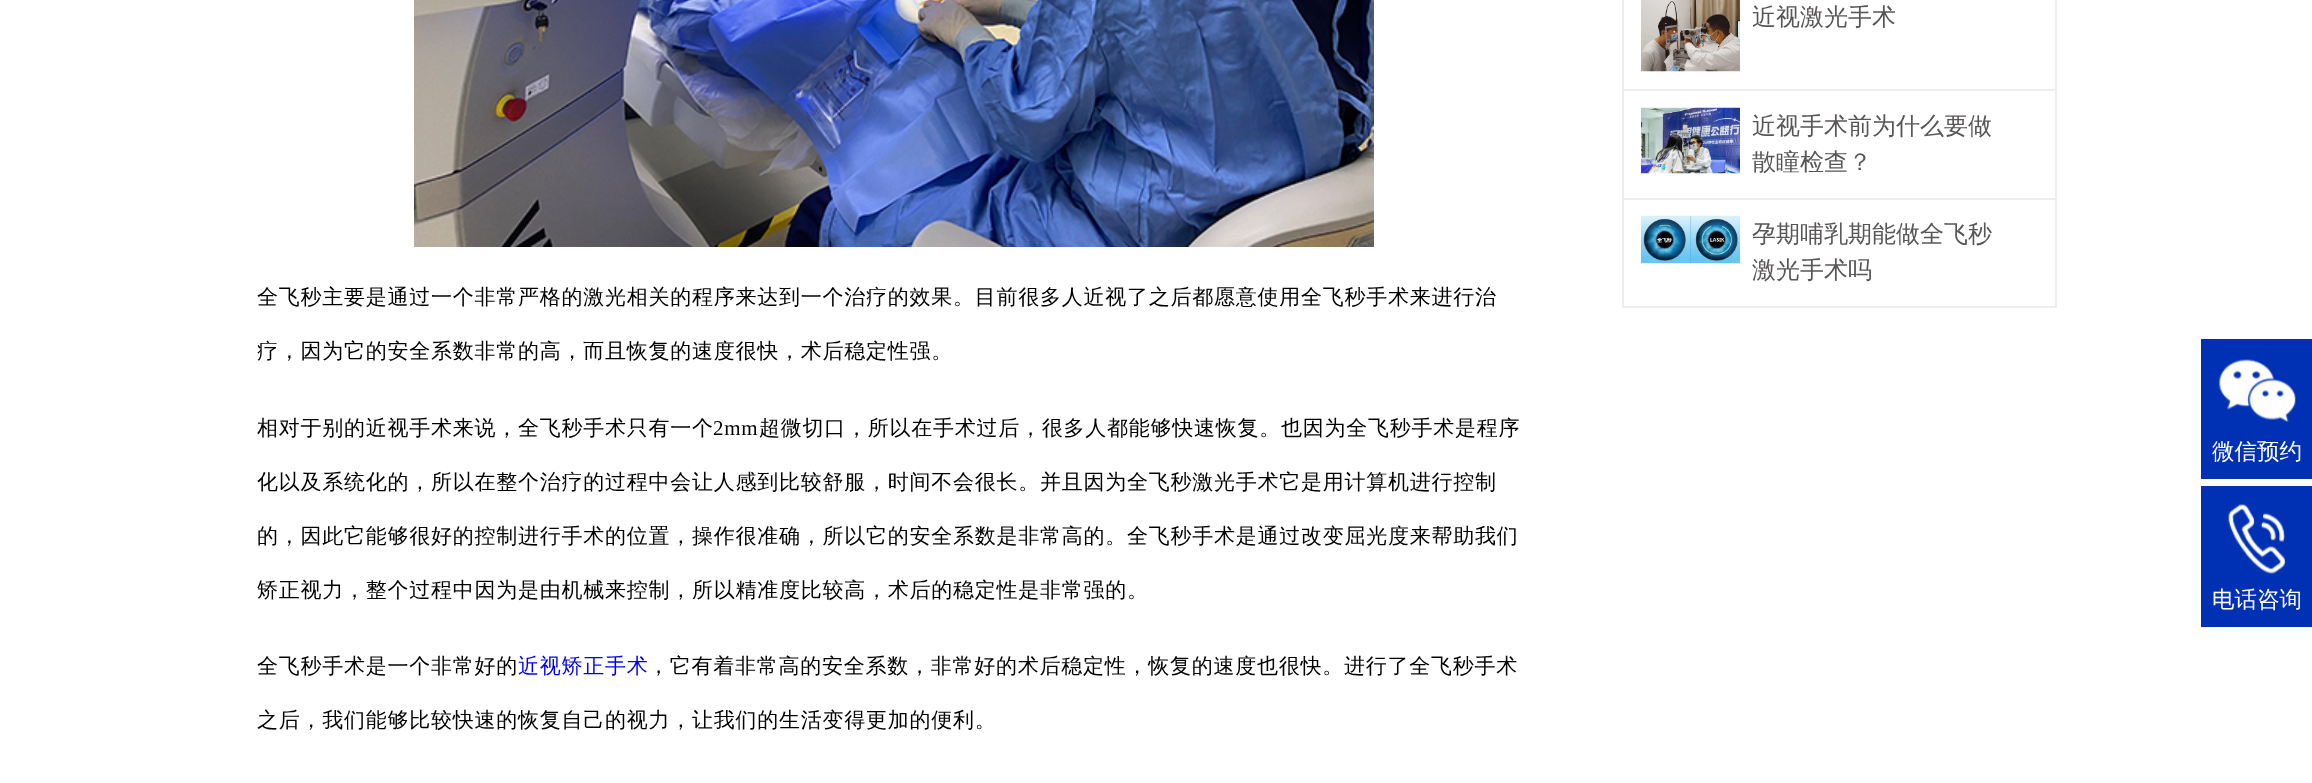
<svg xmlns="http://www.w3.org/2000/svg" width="2312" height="783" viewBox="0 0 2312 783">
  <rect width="100%" height="100%" fill="rgb(255,255,255)"/>
  <rect x="1623" y="-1" width="433" height="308" fill="none" stroke="rgb(238,238,238)" stroke-width="2"/>
  <rect x="1623" y="89" width="432" height="2" fill="rgb(238,238,238)"/>
  <image x="1641" y="0" width="99" height="72" href="pic1.png"/>
  <text x="1752" y="25" font-family="WenQuanYi Zen Hei" font-size="24" font-weight="500" fill="rgb(89,86,86)">近视激光手术</text>
  <rect x="1623" y="198" width="432" height="2" fill="rgb(238,238,238)"/>
  <image x="1641" y="107" width="99" height="67" href="pic2.png"/>
  <g font-family="WenQuanYi Zen Hei" font-size="24" font-weight="500" fill="rgb(89,86,86)">
    <text>
      <tspan x="1752" y="134">近视手术前为什么要做</tspan>
      <tspan x="1752" y="170">散瞳检查？</tspan>
    </text>
  </g>
  <image x="1641" y="215" width="99" height="49" href="pic3.png"/>
  <g font-family="WenQuanYi Zen Hei" font-size="24" font-weight="500" fill="rgb(89,86,86)">
    <text>
      <tspan x="1752" y="242">孕期哺乳期能做全飞秒</tspan>
      <tspan x="1752" y="278">激光手术吗</tspan>
    </text>
  </g>
  <image x="414" y="0" width="960" height="247" href="pic4.png"/>
  <g font-family="WenQuanYi Zen Hei" font-size="21" font-weight="500" letter-spacing="0.75" fill="rgb(0,0,0)">
    <text x="257" y="304">全飞秒主要是通过一个非常严格的激光相关的程序来达到一个治疗的效果。目前很多人近视了之后都愿意使用全飞秒手术来进行治</text>
    <text x="257" y="358">疗，因为它的安全系数非常的高，而且恢复的速度很快，术后稳定性强。</text>
    <text x="257" y="435">相对于别的近视手术来说，全飞秒手术只有一个</text>
  </g>
  <text x="713" y="435" font-family="Liberation Serif" font-size="21" letter-spacing="0.75" fill="rgb(0,0,0)">2mm</text>
  <g font-family="WenQuanYi Zen Hei" font-size="21" font-weight="500" letter-spacing="0.75" fill="rgb(0,0,0)">
    <text x="759" y="435">超微切口，所以在手术过后，很多人都能够快速恢复。也因为全飞秒手术是程序</text>
    <text x="257" y="489">化以及系统化的，所以在整个治疗的过程中会让人感到比较舒服，时间不会很长。并且因为全飞秒激光手术它是用计算机进行控制</text>
    <text x="257" y="543">的，因此它能够很好的控制进行手术的位置，操作很准确，所以它的安全系数是非常高的。全飞秒手术是通过改变屈光度来帮助我们</text>
    <text x="257" y="597">矫正视力，整个过程中因为是由机械来控制，所以精准度比较高，术后的稳定性是非常强的。</text>
    <text x="257" y="673">全飞秒手术是一个非常好的</text>
  </g>
  <text x="518" y="673" font-family="WenQuanYi Zen Hei" font-size="21" font-weight="500" letter-spacing="0.75" fill="rgb(0,0,238)">近视矫正手术</text>
  <g font-family="WenQuanYi Zen Hei" font-size="21" font-weight="500" letter-spacing="0.75" fill="rgb(0,0,0)">
    <text x="648" y="673">，它有着非常高的安全系数，非常好的术后稳定性，恢复的速度也很快。进行了全飞秒手术</text>
    <text x="257" y="727">之后，我们能够比较快速的恢复自己的视力，让我们的生活变得更加的便利。</text>
  </g>
  <rect x="2201" y="339" width="111" height="140" fill="rgb(0,49,180)"/>
  <image x="2219" y="359" width="77" height="63" href="pic5.png"/>
  <text x="2212" y="459" font-family="WenQuanYi Zen Hei" font-size="22.5" font-weight="500" fill="rgb(255,255,255)">微信预约</text>
  <rect x="2201" y="486" width="111" height="141" fill="rgb(0,49,180)"/>
  <image x="2228" y="504" width="58" height="70" href="pic6.png"/>
  <text x="2212" y="607" font-family="WenQuanYi Zen Hei" font-size="22.5" font-weight="500" fill="rgb(255,255,255)">电话咨询</text>
</svg>
